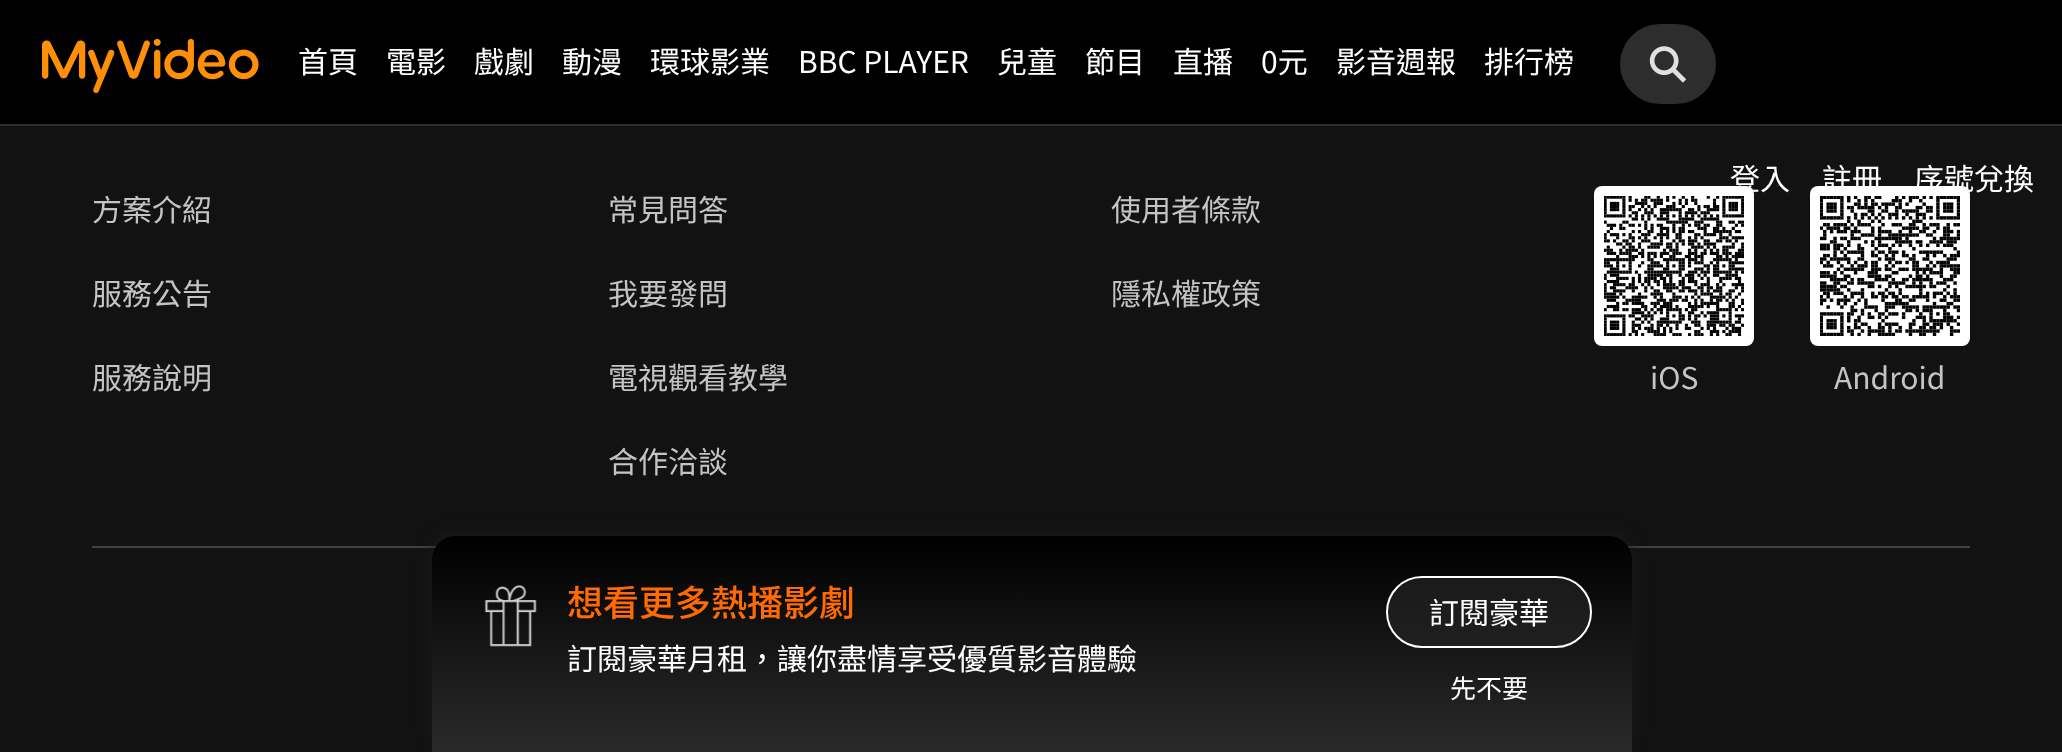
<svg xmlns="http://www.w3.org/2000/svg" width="2062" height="752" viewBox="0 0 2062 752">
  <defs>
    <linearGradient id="g1" gradientUnits="userSpaceOnUse" x1="1032" y1="536" x2="1032" y2="752"><stop offset="0" stop-color="rgb(0,0,0)"/><stop offset="1" stop-color="rgb(42,42,42)"/></linearGradient>
  </defs>
  <rect width="100%" height="100%" fill="rgb(18,18,18)"/>
  <rect x="0" y="0" width="2062" height="124" fill="rgb(0,0,0)"/>
  <rect x="0" y="124" width="2062" height="2" fill="rgb(45,45,45)"/>
  <image x="42" y="38" width="217" height="56" href="pic1.png"/>
  <g font-family="Noto Sans TC" font-size="30" fill="rgb(255,255,255)">
    <text x="298" y="73">首頁</text>
    <text x="386" y="73">電影</text>
    <text x="474" y="73">戲劇</text>
    <text x="562" y="73">動漫</text>
    <text x="650" y="73">環球影業</text>
    <text x="798" y="73">BBC PLAYER</text>
    <text x="997" y="73">兒童</text>
    <text x="1085" y="73">節目</text>
    <text x="1173" y="73">直播</text>
    <text x="1261" y="73">0元</text>
    <text x="1336" y="73">影音週報</text>
    <text x="1484" y="73">排行榜</text>
  </g>
  <rect x="1620" y="24" width="96" height="80" rx="40" fill="rgb(45,45,45)"/>
  <image x="1649" y="46" width="38" height="37" href="pic2.png"/>
  <image x="1594" y="186" width="160" height="160" href="pic3.png"/>
  <text x="1730" y="190" font-family="Noto Sans TC" font-size="30" fill="rgb(255,255,255)">登入</text>
  <image x="1810" y="186" width="160" height="160" href="pic4.png"/>
  <g font-family="Noto Sans TC" font-size="30" fill="rgb(255,255,255)">
    <text x="1822" y="190">註冊</text>
    <text x="1914" y="190">序號兌換</text>
  </g>
  <g font-family="Noto Sans TC" font-size="30" fill="rgb(196,196,196)">
    <text x="92" y="221">方案介紹</text>
    <text x="92" y="305">服務公告</text>
    <text x="92" y="389">服務說明</text>
    <text x="608" y="221">常見問答</text>
    <text x="608" y="305">我要發問</text>
    <text x="608" y="389">電視觀看教學</text>
    <text x="608" y="473">合作洽談</text>
    <text x="1111" y="221">使用者條款</text>
    <text x="1111" y="305">隱私權政策</text>
    <text x="1650" y="389">iOS</text>
    <text x="1834" y="389">Android</text>
  </g>
  <rect x="92" y="546" width="1878" height="2" fill="rgb(66,66,66)"/>
  <rect x="432" y="534" width="1200" height="216" rx="24" fill="rgba(27,27,27,0.8)" filter="blur(8px)"/>
  <path d="M456 536H1608C1621.5 536 1632 546.5 1632 560V752H432V560C432 546.5 442.5 536 456 536Z" fill="url(#g1)"/>
  <image x="484" y="585" width="53" height="62" href="pic5.png"/>
  <text x="567" y="616" font-family="Noto Sans TC" font-size="36" font-weight="500" fill="rgb(255,107,0)">想看更多熱播影劇</text>
  <text x="567" y="670" font-family="Noto Sans TC" font-size="30" fill="rgb(255,255,255)">訂閱豪華月租，讓你盡情享受優質影音體驗</text>
  <rect x="1387" y="577" width="204" height="70" rx="35" fill="rgba(38,38,38,0.6)" stroke="rgb(255,255,255)" stroke-width="2"/>
  <text x="1429" y="624" font-family="Noto Sans TC" font-size="30" fill="rgb(255,255,255)">訂閱豪華</text>
  <text x="1450" y="698" font-family="Noto Sans TC" font-size="26" fill="rgb(255,255,255)">先不要</text>
</svg>
